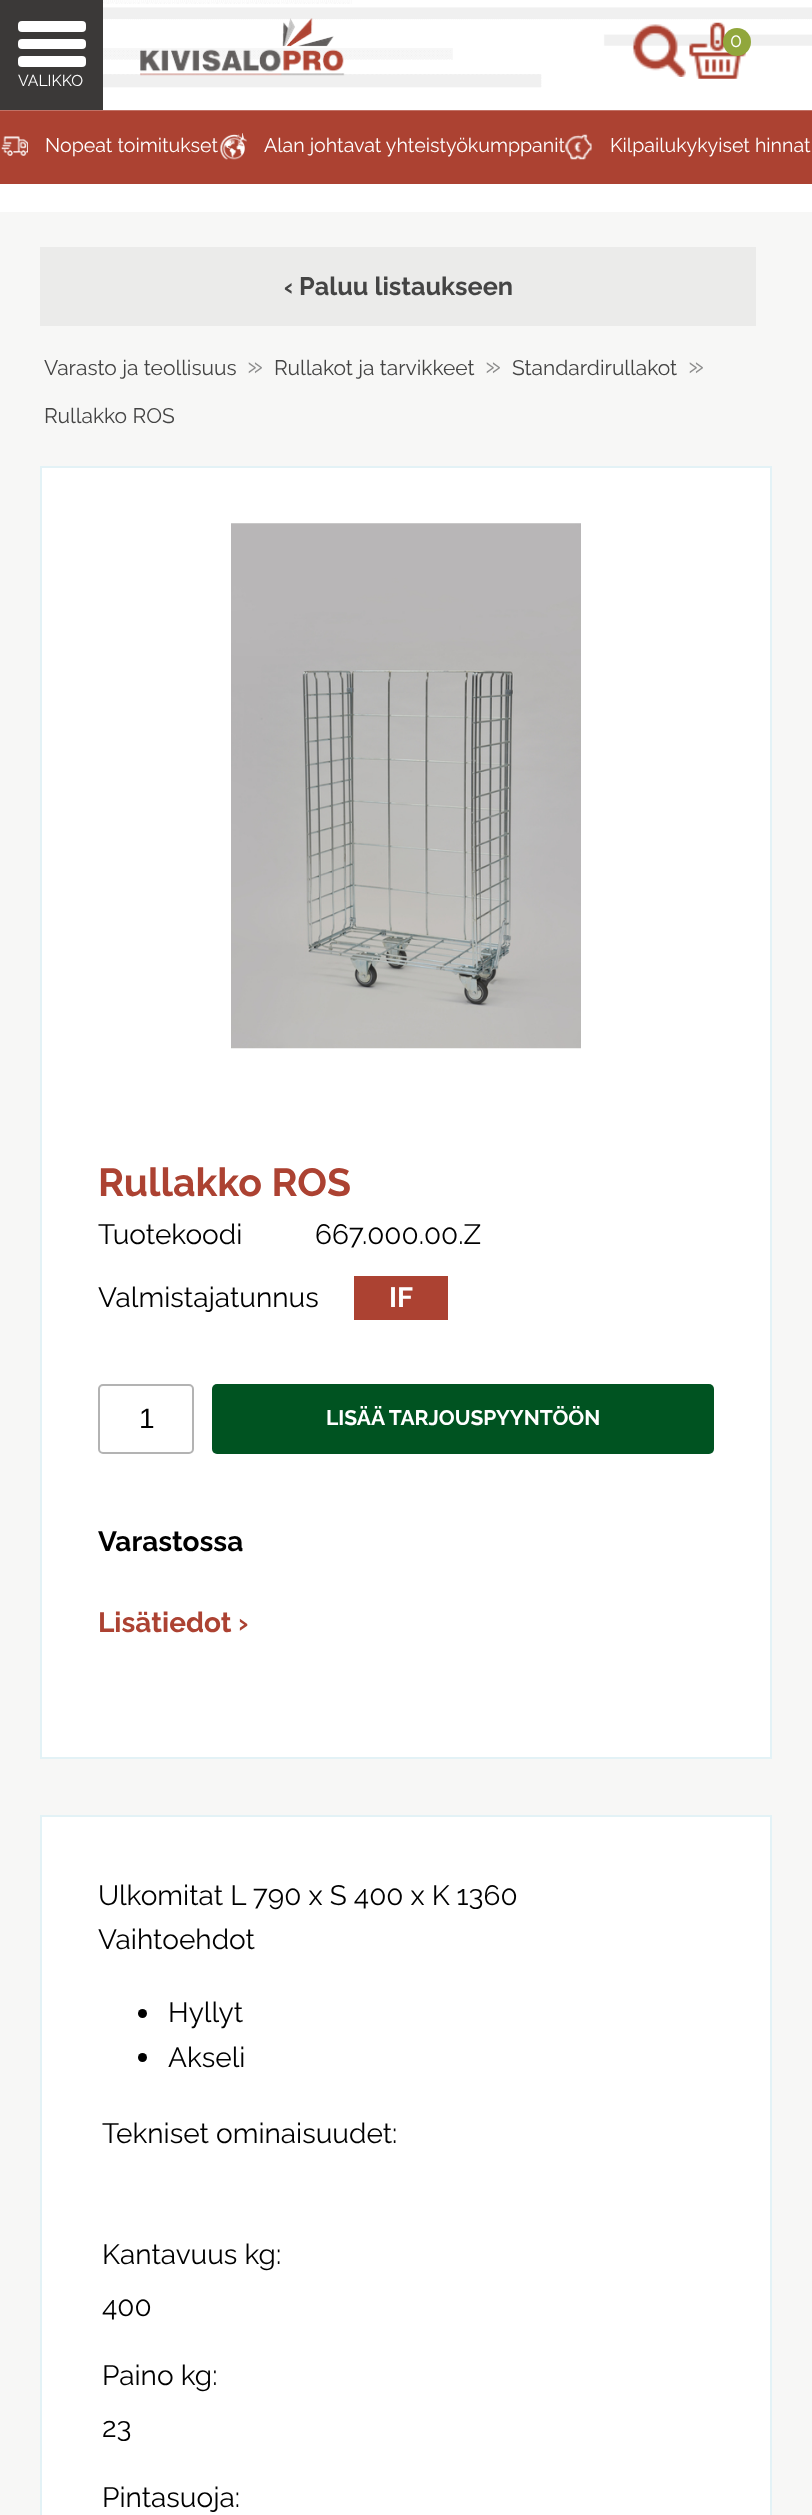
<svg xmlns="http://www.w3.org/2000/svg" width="812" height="2515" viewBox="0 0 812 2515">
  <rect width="100%" height="100%" fill="rgb(255,255,255)"/>
  <rect x="0" y="110" width="812" height="74" fill="rgb(172,66,50)"/>
  <image x="0" y="0" width="812" height="111" href="pic4.png"/>
  <image x="140" y="18" width="205" height="58" href="pic1.png"/>
  <image x="632" y="24" width="54" height="53" href="pic2.png"/>
  <image x="689" y="22" width="57" height="57" href="pic3.png"/>
  <circle cx="737" cy="42" r="14" fill="rgb(145,167,60)"/>
  <text x="730" y="47" font-family="Raleway" font-size="19.6" font-weight="100" fill="rgb(255,255,255)">0</text>
  <rect x="0" y="0" width="103" height="110" fill="rgb(59,57,56)"/>
  <rect x="18" y="21" width="68" height="11" rx="4" fill="rgb(255,255,255)"/>
  <rect x="18" y="39" width="68" height="10" rx="4" fill="rgb(255,255,255)"/>
  <rect x="18" y="56" width="68" height="11" rx="4" fill="rgb(255,255,255)"/>
  <text x="18" y="86" font-family="Raleway" font-size="15.75" font-weight="100" fill="rgb(255,255,255)">VALIKKO</text>
  <image x="1" y="136" width="27" height="20" href="pic5.png"/>
  <text x="45" y="152" font-family="Raleway" font-size="19.6" font-weight="100" fill="rgb(255,255,255)">Nopeat toimitukset</text>
  <image x="220" y="133" width="27" height="27" href="pic6.png"/>
  <text x="264" y="152" font-family="Raleway" font-size="19.6" font-weight="100" fill="rgb(255,255,255)">Alan johtavat yhteistyökumppanit</text>
  <image x="565" y="134" width="27" height="26" href="pic7.png"/>
  <text x="610" y="152" font-family="Raleway" font-size="19.6" font-weight="100" fill="rgb(255,255,255)">Kilpailukykyiset hinnat</text>
  <rect x="0" y="212" width="812" height="2303" fill="rgb(247,247,246)"/>
  <rect x="40" y="247" width="716" height="79" fill="rgb(235,235,234)"/>
  <text x="284" y="295" font-family="'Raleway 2'" font-size="25.25" font-weight="100" fill="rgb(68,68,68)">‹ Paluu listaukseen</text>
  <text x="44" y="375" font-family="Raleway" font-size="21" font-weight="100" fill="rgb(68,68,68)">Varasto ja teollisuus</text>
  <text x="247" y="375" font-family="Raleway" font-size="28" font-weight="100" fill="rgb(141,141,141)">»</text>
  <text x="274" y="375" font-family="Raleway" font-size="21" font-weight="100" fill="rgb(68,68,68)">Rullakot ja tarvikkeet</text>
  <text x="485" y="375" font-family="Raleway" font-size="28" font-weight="100" fill="rgb(141,141,141)">»</text>
  <text x="512" y="375" font-family="Raleway" font-size="21" font-weight="100" fill="rgb(68,68,68)">Standardirullakot</text>
  <text x="688" y="375" font-family="Raleway" font-size="28" font-weight="100" fill="rgb(141,141,141)">»</text>
  <text x="44" y="423" font-family="Raleway" font-size="21" font-weight="100" fill="rgb(68,68,68)">Rullakko ROS</text>
  <rect x="41" y="467" width="730" height="1291" fill="rgb(255,255,255)" stroke="rgb(227,242,246)" stroke-width="2"/>
  <image x="231" y="523" width="350" height="526" href="pic8.png"/>
  <text x="98" y="1196" font-family="'Raleway 2'" font-size="39.25" font-weight="100" fill="rgb(172,66,50)">Rullakko ROS</text>
  <g font-family="Raleway" font-size="28" font-weight="100" fill="rgb(0,0,0)">
    <text x="98" y="1244">Tuotekoodi</text>
    <text x="315" y="1244">667.000.00.Z</text>
    <text x="98" y="1307">Valmistajatunnus</text>
  </g>
  <rect x="354" y="1276" width="94" height="44" fill="rgb(172,66,50)"/>
  <text x="389" y="1307" font-family="'Raleway 2'" font-size="28" font-weight="100" fill="rgb(255,255,255)">IF</text>
  <rect x="99" y="1385" width="94" height="68" rx="4" fill="none" stroke="rgb(179,179,179)" stroke-width="2"/>
  <text x="139" y="1428" font-family="Liberation Sans" font-size="28" fill="rgb(0,0,0)">1</text>
  <rect x="212" y="1384" width="502" height="70" rx="5" fill="rgb(0,83,33)"/>
  <text x="326" y="1425" font-family="'Raleway 2'" font-size="21" font-weight="100" fill="rgb(255,255,255)">LISÄÄ TARJOUSPYYNTÖÖN</text>
  <text x="98" y="1551" font-family="'Raleway 2'" font-size="28" font-weight="100" fill="rgb(0,0,0)">Varastossa</text>
  <text x="98" y="1632" font-family="'Raleway 2'" font-size="28" font-weight="100" fill="rgb(172,66,50)">Lisätiedot ›</text>
  <rect x="41" y="1816" width="730" height="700" fill="rgb(255,255,255)" stroke="rgb(227,242,246)" stroke-width="2"/>
  <g font-family="Raleway" font-size="28" font-weight="100" fill="rgb(0,0,0)">
    <text>
      <tspan x="98" y="1905">Ulkomitat L 790 x S 400 x K 1360</tspan>
      <tspan x="98" y="1949">Vaihtoehdot</tspan>
    </text>
  </g>
  <circle cx="142.5" cy="2013.5" r="4.5" fill="rgb(0,0,0)"/>
  <text x="168" y="2022" font-family="Raleway" font-size="28" font-weight="100" fill="rgb(0,0,0)">Hyllyt</text>
  <circle cx="142.5" cy="2057.5" r="4.5" fill="rgb(0,0,0)"/>
  <g font-family="Raleway" font-size="28" font-weight="100" fill="rgb(0,0,0)">
    <text x="168" y="2067">Akseli</text>
    <text x="102" y="2143">Tekniset ominaisuudet:</text>
    <text>
      <tspan x="102" y="2264">Kantavuus kg:</tspan>
      <tspan x="102" y="2316">400</tspan>
    </text>
    <text>
      <tspan x="102" y="2385">Paino kg:</tspan>
      <tspan x="102" y="2437">23</tspan>
    </text>
    <text x="102" y="2507">Pintasuoja:</text>
  </g>
</svg>
